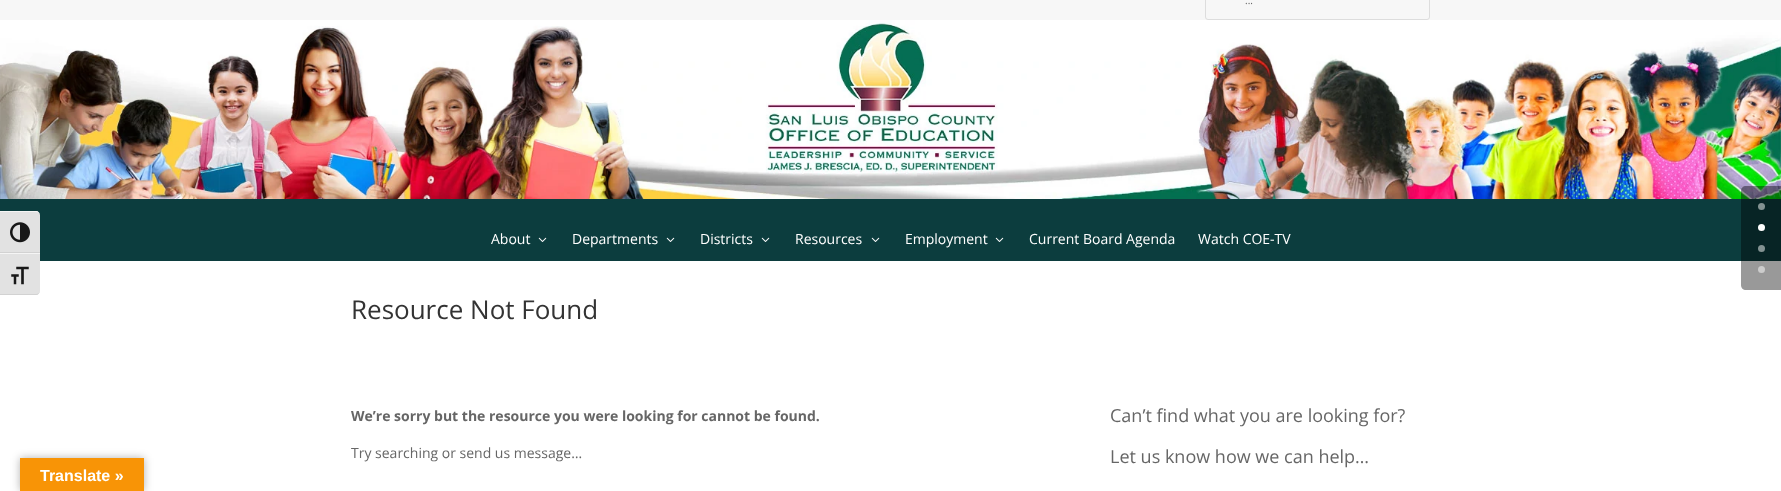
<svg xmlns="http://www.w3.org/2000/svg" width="1781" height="491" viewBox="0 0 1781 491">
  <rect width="100%" height="100%" fill="rgb(255,255,255)"/>
  <rect x="0" y="199" width="1781" height="62" fill="rgb(12,61,62)"/>
  <path d="M0 211H36C38 211 40 213 40 215V253H0Z" fill="rgb(226,226,226)"/>
  <path d="M0 211V212H36C38 212 40 213 40 215C40 213 38 211 36 211Z" fill="rgb(245,245,245)"/>
  <rect x="0" y="252" width="40" height="1" fill="rgb(210,210,210)"/>
  <image x="10" y="222" width="20" height="21" href="pic1.png"/>
  <path d="M0 253H40V291C40 293 38 295 36 295H0Z" fill="rgb(226,226,226)"/>
  <rect x="0" y="253" width="40" height="1" fill="rgb(245,245,245)"/>
  <path d="M0 294V295H36C38 295 40 293 40 291C40 293 38 294 36 294Z" fill="rgb(210,210,210)"/>
  <image x="11" y="266" width="18" height="19" href="pic2.png"/>
  <rect x="0" y="0" width="1781" height="20" fill="rgb(247,247,247)"/>
  <rect x="1205.5" y="-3.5" width="224" height="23" rx="2.5" fill="none" stroke="rgb(221,221,221)"/>
  <text x="1245" y="4" font-family="Open Sans" font-size="10" fill="rgb(102,102,102)">...</text>
  <image x="0" y="20" width="1781" height="179" href="pic3.png"/>
  <text x="491" y="244" font-family="Open Sans" font-size="14" fill="rgb(255,255,255)">About</text>
  <image x="538" y="237" width="9" height="5" href="pic4.png"/>
  <text x="572" y="244" font-family="Open Sans" font-size="14" fill="rgb(255,255,255)">Departments</text>
  <image x="666" y="237" width="9" height="5" href="pic4.png"/>
  <text x="700" y="244" font-family="Open Sans" font-size="14" fill="rgb(255,255,255)">Districts</text>
  <image x="761" y="237" width="9" height="5" href="pic4.png"/>
  <text x="795" y="244" font-family="Open Sans" font-size="14" fill="rgb(255,255,255)">Resources</text>
  <image x="871" y="237" width="9" height="5" href="pic4.png"/>
  <text x="905" y="244" font-family="Open Sans" font-size="14" fill="rgb(255,255,255)">Employment</text>
  <image x="995" y="237" width="9" height="5" href="pic4.png"/>
  <g font-family="Open Sans" font-size="14" fill="rgb(255,255,255)">
    <text x="1029" y="244">Current Board Agenda</text>
    <text x="1198" y="244">Watch COE-TV</text>
  </g>
  <text x="351" y="319" font-family="Open Sans" font-size="26" fill="rgb(51,51,51)">Resource Not Found</text>
  <text x="351" y="421" font-family="Open Sans" font-size="14" font-weight="bold" fill="rgb(102,102,102)">We’re sorry but the resource you were looking for cannot be found.</text>
  <text x="351" y="458" font-family="Open Sans" font-size="14" fill="rgb(102,102,102)">Try searching or send us message…</text>
  <g font-family="Open Sans" font-size="18" fill="rgb(102,102,102)">
    <text x="1110" y="422">Can’t find what you are looking for?</text>
    <text x="1110" y="463">Let us know how we can help…</text>
  </g>
  <path d="M1746 186H1781V290H1746C1743 290 1741 288 1741 285V191C1741 188 1743 186 1746 186Z" fill="rgba(0,0,0,0.4)"/>
  <circle cx="1761.5" cy="206.5" r="3.5" fill="rgb(131,146,146)"/>
  <circle cx="1761.5" cy="227.5" r="3.5" fill="rgb(255,255,255)"/>
  <circle cx="1761.5" cy="248.5" r="3.5" fill="rgb(131,146,146)"/>
  <circle cx="1761.5" cy="269.5" r="3.5" fill="rgb(204,204,204)"/>
  <rect x="20" y="458" width="124" height="33" fill="rgba(0,0,0,0.3)" filter="blur(4.5px)"/>
  <rect x="20" y="458" width="124" height="33" fill="rgb(248,148,6)"/>
  <text x="40" y="481" font-family="Liberation Sans" font-size="16" font-weight="bold" fill="rgb(255,255,255)">Translate »</text>
</svg>
